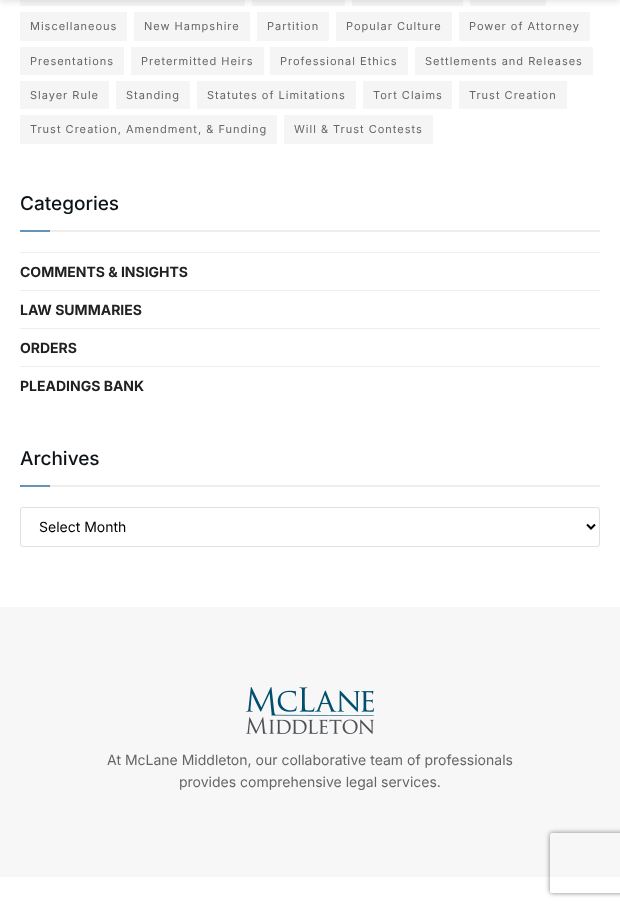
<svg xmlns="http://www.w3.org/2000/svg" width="620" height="907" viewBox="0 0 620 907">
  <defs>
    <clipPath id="clip1"><path d="M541 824H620V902H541ZM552 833H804C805 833 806 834 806 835V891C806 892 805 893 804 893H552C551 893 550 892 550 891V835C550 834 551 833 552 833Z" clip-rule="evenodd"/></clipPath>
  </defs>
  <rect width="100%" height="100%" fill="rgb(255,255,255)"/>
  <rect x="20" y="0" width="225" height="6" fill="rgb(245,245,245)"/>
  <rect x="252" y="0" width="93" height="6" fill="rgb(245,245,245)"/>
  <rect x="352" y="0" width="111" height="6" fill="rgb(245,245,245)"/>
  <rect x="470" y="0" width="76" height="6" fill="rgb(245,245,245)"/>
  <rect x="0" y="-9" width="620" height="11" fill="rgba(0,0,0,0.1)" filter="blur(3px)"/>
  <rect x="20" y="12" width="107" height="29" fill="rgb(245,245,245)"/>
  <text x="30" y="30" font-family="Inter" font-size="11" letter-spacing="1" fill="rgb(102,102,102)">Miscellaneous</text>
  <rect x="134" y="12" width="116" height="29" fill="rgb(245,245,245)"/>
  <text x="144" y="30" font-family="Inter" font-size="11" letter-spacing="1" fill="rgb(102,102,102)">New Hampshire</text>
  <rect x="257" y="12" width="72" height="29" fill="rgb(245,245,245)"/>
  <text x="267" y="30" font-family="Inter" font-size="11" letter-spacing="1" fill="rgb(102,102,102)">Partition</text>
  <rect x="336" y="12" width="116" height="29" fill="rgb(245,245,245)"/>
  <text x="346" y="30" font-family="Inter" font-size="11" letter-spacing="1" fill="rgb(102,102,102)">Popular Culture</text>
  <rect x="459" y="12" width="131" height="29" fill="rgb(245,245,245)"/>
  <text x="469" y="30" font-family="Inter" font-size="11" letter-spacing="1" fill="rgb(102,102,102)">Power of Attorney</text>
  <rect x="20" y="47" width="104" height="28" fill="rgb(245,245,245)"/>
  <text x="30" y="65" font-family="Inter" font-size="11" letter-spacing="1" fill="rgb(102,102,102)">Presentations</text>
  <rect x="131" y="47" width="133" height="28" fill="rgb(245,245,245)"/>
  <text x="141" y="65" font-family="Inter" font-size="11" letter-spacing="1" fill="rgb(102,102,102)">Pretermitted Heirs</text>
  <rect x="270" y="47" width="138" height="28" fill="rgb(245,245,245)"/>
  <text x="280" y="65" font-family="Inter" font-size="11" letter-spacing="1" fill="rgb(102,102,102)">Professional Ethics</text>
  <rect x="415" y="47" width="178" height="28" fill="rgb(245,245,245)"/>
  <text x="425" y="65" font-family="Inter" font-size="11" letter-spacing="1" fill="rgb(102,102,102)">Settlements and Releases</text>
  <rect x="20" y="81" width="89" height="28" fill="rgb(245,245,245)"/>
  <text x="30" y="99" font-family="Inter" font-size="11" letter-spacing="1" fill="rgb(102,102,102)">Slayer Rule</text>
  <rect x="116" y="81" width="74" height="28" fill="rgb(245,245,245)"/>
  <text x="126" y="99" font-family="Inter" font-size="11" letter-spacing="1" fill="rgb(102,102,102)">Standing</text>
  <rect x="197" y="81" width="159" height="28" fill="rgb(245,245,245)"/>
  <text x="207" y="99" font-family="Inter" font-size="11" letter-spacing="1" fill="rgb(102,102,102)">Statutes of Limitations</text>
  <rect x="363" y="81" width="89" height="28" fill="rgb(245,245,245)"/>
  <text x="373" y="99" font-family="Inter" font-size="11" letter-spacing="1" fill="rgb(102,102,102)">Tort Claims</text>
  <rect x="459" y="81" width="108" height="28" fill="rgb(245,245,245)"/>
  <text x="469" y="99" font-family="Inter" font-size="11" letter-spacing="1" fill="rgb(102,102,102)">Trust Creation</text>
  <rect x="20" y="115" width="257" height="29" fill="rgb(245,245,245)"/>
  <text x="30" y="133" font-family="Inter" font-size="11" letter-spacing="1" fill="rgb(102,102,102)">Trust Creation, Amendment, &amp; Funding</text>
  <rect x="284" y="115" width="149" height="29" fill="rgb(245,245,245)"/>
  <text x="294" y="133" font-family="Inter" font-size="11" letter-spacing="1" fill="rgb(102,102,102)">Will &amp; Trust Contests</text>
  <rect x="50" y="230" width="550" height="2" fill="rgb(238,238,238)"/>
  <text x="20" y="210" font-family="Inter" font-size="19" font-weight="500" fill="rgb(13,19,23)">Categories</text>
  <rect x="20" y="230" width="30" height="2" fill="rgb(102,148,185)"/>
  <rect x="20" y="252" width="580" height="1" fill="rgb(238,238,238)"/>
  <text x="20" y="277" font-family="Inter" font-size="14" font-weight="bold" fill="rgb(33,33,33)">COMMENTS &amp; INSIGHTS</text>
  <rect x="20" y="290" width="580" height="1" fill="rgb(238,238,238)"/>
  <text x="20" y="315" font-family="Inter" font-size="14" font-weight="bold" fill="rgb(33,33,33)">LAW SUMMARIES</text>
  <rect x="20" y="328" width="580" height="1" fill="rgb(238,238,238)"/>
  <text x="20" y="353" font-family="Inter" font-size="14" font-weight="bold" fill="rgb(33,33,33)">ORDERS</text>
  <rect x="20" y="366" width="580" height="1" fill="rgb(238,238,238)"/>
  <text x="20" y="391" font-family="Inter" font-size="14" font-weight="bold" fill="rgb(33,33,33)">PLEADINGS BANK</text>
  <rect x="50" y="485" width="550" height="2" fill="rgb(238,238,238)"/>
  <text x="20" y="465" font-family="Inter" font-size="19" font-weight="500" fill="rgb(13,19,23)">Archives</text>
  <rect x="20" y="485" width="30" height="2" fill="rgb(102,148,185)"/>
  <rect x="20.5" y="507.5" width="579" height="39" rx="2.5" fill="none" stroke="rgb(224,224,224)"/>
  <path d="M587 524.5L591 528.5L595 524.5" fill="none" stroke="rgb(0,0,0)" stroke-width="2"/>
  <text x="39" y="532" font-family="Inter" font-size="14" fill="rgb(0,0,0)">Select Month</text>
  <rect x="0" y="607" width="620" height="270" fill="rgb(247,247,247)"/>
  <image x="246" y="687" width="128" height="47" href="pic1.png"/>
  <g font-family="Inter" font-size="14" fill="rgb(102,102,102)">
    <text x="107" y="765">At McLane Middleton, our collaborative team of professionals</text>
    <text x="179" y="787">provides comprehensive legal services.</text>
  </g>
  <g clip-path="url(#clip1)">
    <rect x="550" y="833" width="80" height="60" rx="2" fill="rgb(128,128,128)" filter="blur(2.5px)"/>
  </g>
</svg>
